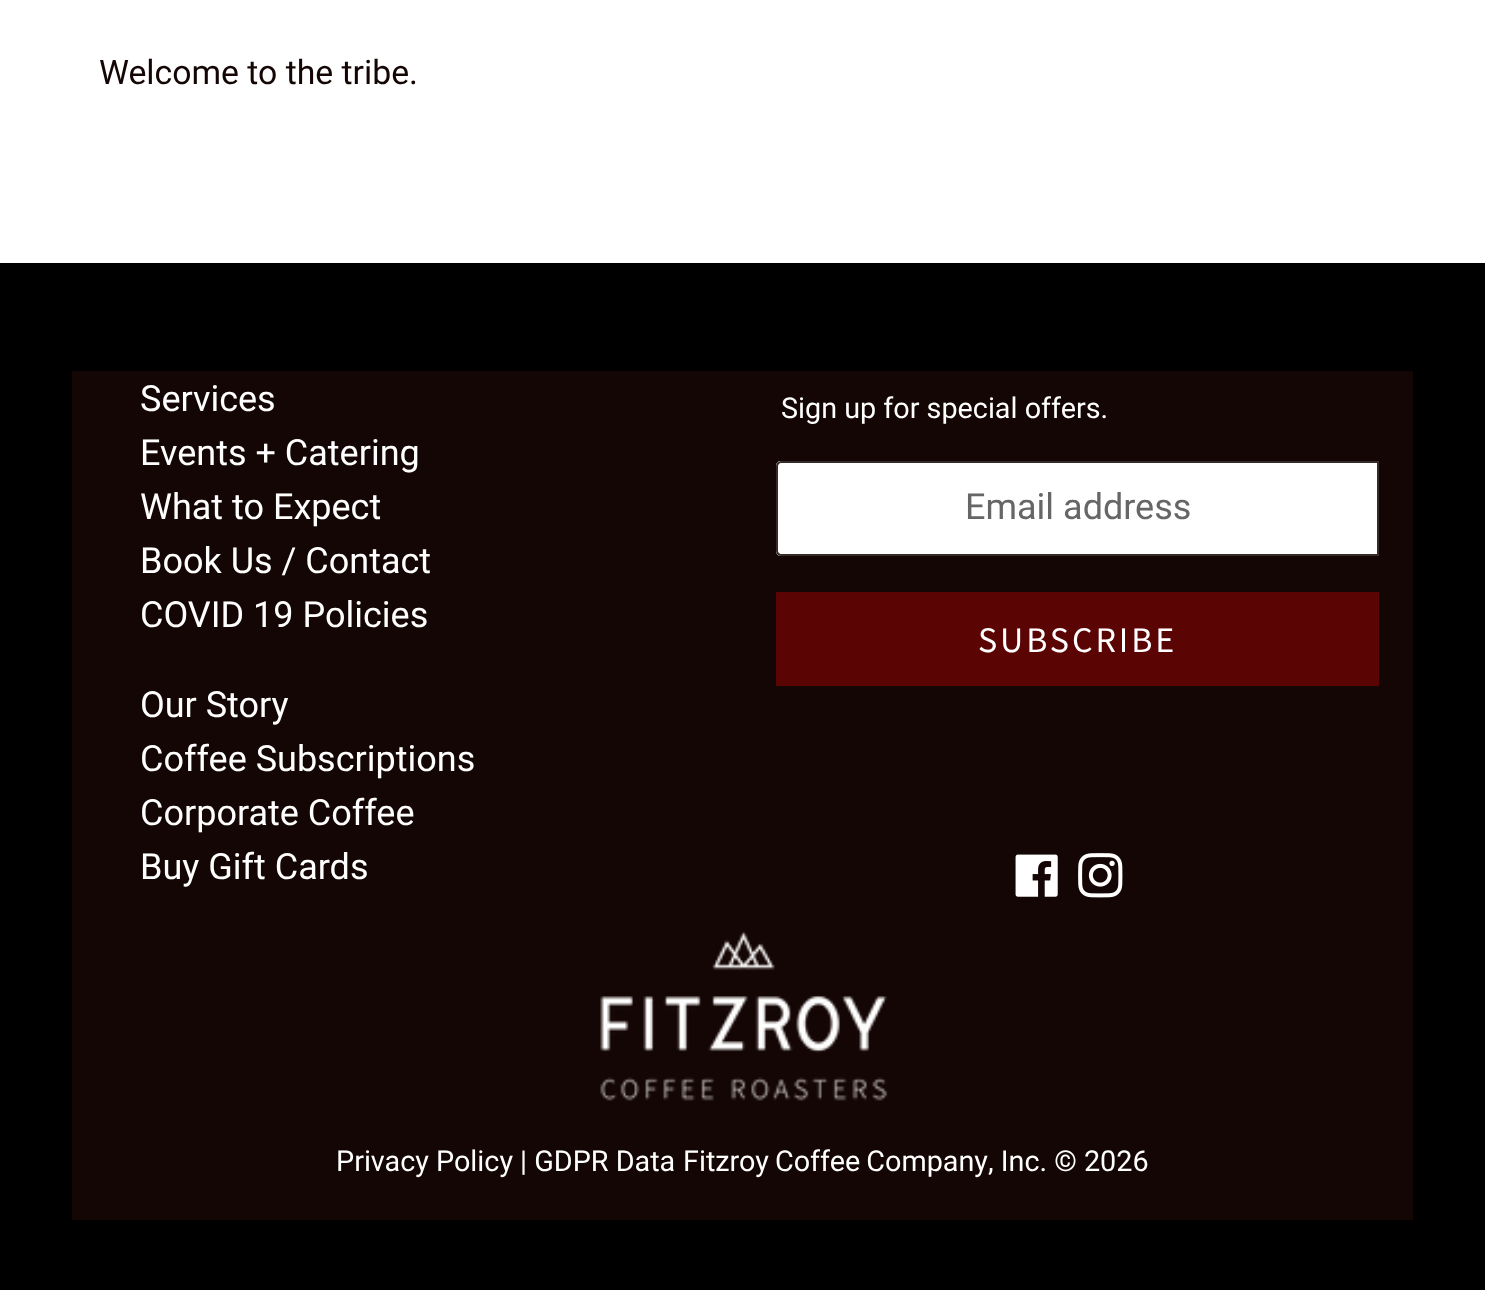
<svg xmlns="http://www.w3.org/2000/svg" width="1485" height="1290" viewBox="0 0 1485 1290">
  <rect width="100%" height="100%" fill="rgb(255,255,255)"/>
  <text x="99" y="84" font-family="Roboto" font-size="33.75" fill="rgb(20,6,4)">Welcome to the tribe.</text>
  <rect x="0" y="263" width="1485" height="1027" fill="rgb(0,0,0)"/>
  <rect x="72" y="371" width="1341" height="849" fill="rgb(20,6,4)"/>
  <g font-family="Roboto" font-size="36" fill="rgb(255,255,255)">
    <text>
      <tspan x="140" y="411">Services</tspan>
      <tspan x="140" y="465">Events + Catering</tspan>
      <tspan x="140" y="519">What to Expect</tspan>
      <tspan x="140" y="573">Book Us / Contact</tspan>
      <tspan x="140" y="627">COVID 19 Policies</tspan>
    </text>
    <text>
      <tspan x="140" y="717">Our Story</tspan>
      <tspan x="140" y="771">Coffee Subscriptions</tspan>
      <tspan x="140" y="825">Corporate Coffee</tspan>
      <tspan x="140" y="879">Buy Gift Cards</tspan>
    </text>
  </g>
  <text x="781" y="418" font-family="Roboto" font-size="28.75" fill="rgb(255,255,255)">Sign up for special offers.</text>
  <path d="M781 461H1379V556H781C778 556 776 554 776 551V466C776 463 778 461 781 461Z" fill="rgb(255,255,255)"/>
  <path d="M781 462H1378V555H781C779 555 777 553 777 551V466C777 464 779 462 781 462Z" fill="none" stroke="rgba(20,6,4,0.85)" stroke-width="2"/>
  <text x="965" y="519" font-family="Roboto" font-size="36" fill="rgb(102,102,102)">Email address</text>
  <rect x="776" y="592" width="603" height="94" fill="rgb(90,4,3)"/>
  <text x="978" y="652" font-family="Source Sans Pro" font-size="36" letter-spacing="2.9" fill="rgb(255,255,255)">SUBSCRIBE</text>
  <image x="1015" y="854" width="43" height="43" href="pic1.png"/>
  <image x="1078" y="853" width="45" height="45" href="pic2.png"/>
  <image x="600" y="931" width="288" height="170" href="pic3.png"/>
  <g font-family="Roboto" font-size="28.75" fill="rgb(255,255,255)">
    <text x="336" y="1171">Privacy Policy | GDPR Data</text>
    <text x="683" y="1171" word-spacing="-1">Fitzroy Coffee Company</text>
    <text x="988" y="1171">, Inc. © 2026</text>
  </g>
</svg>
